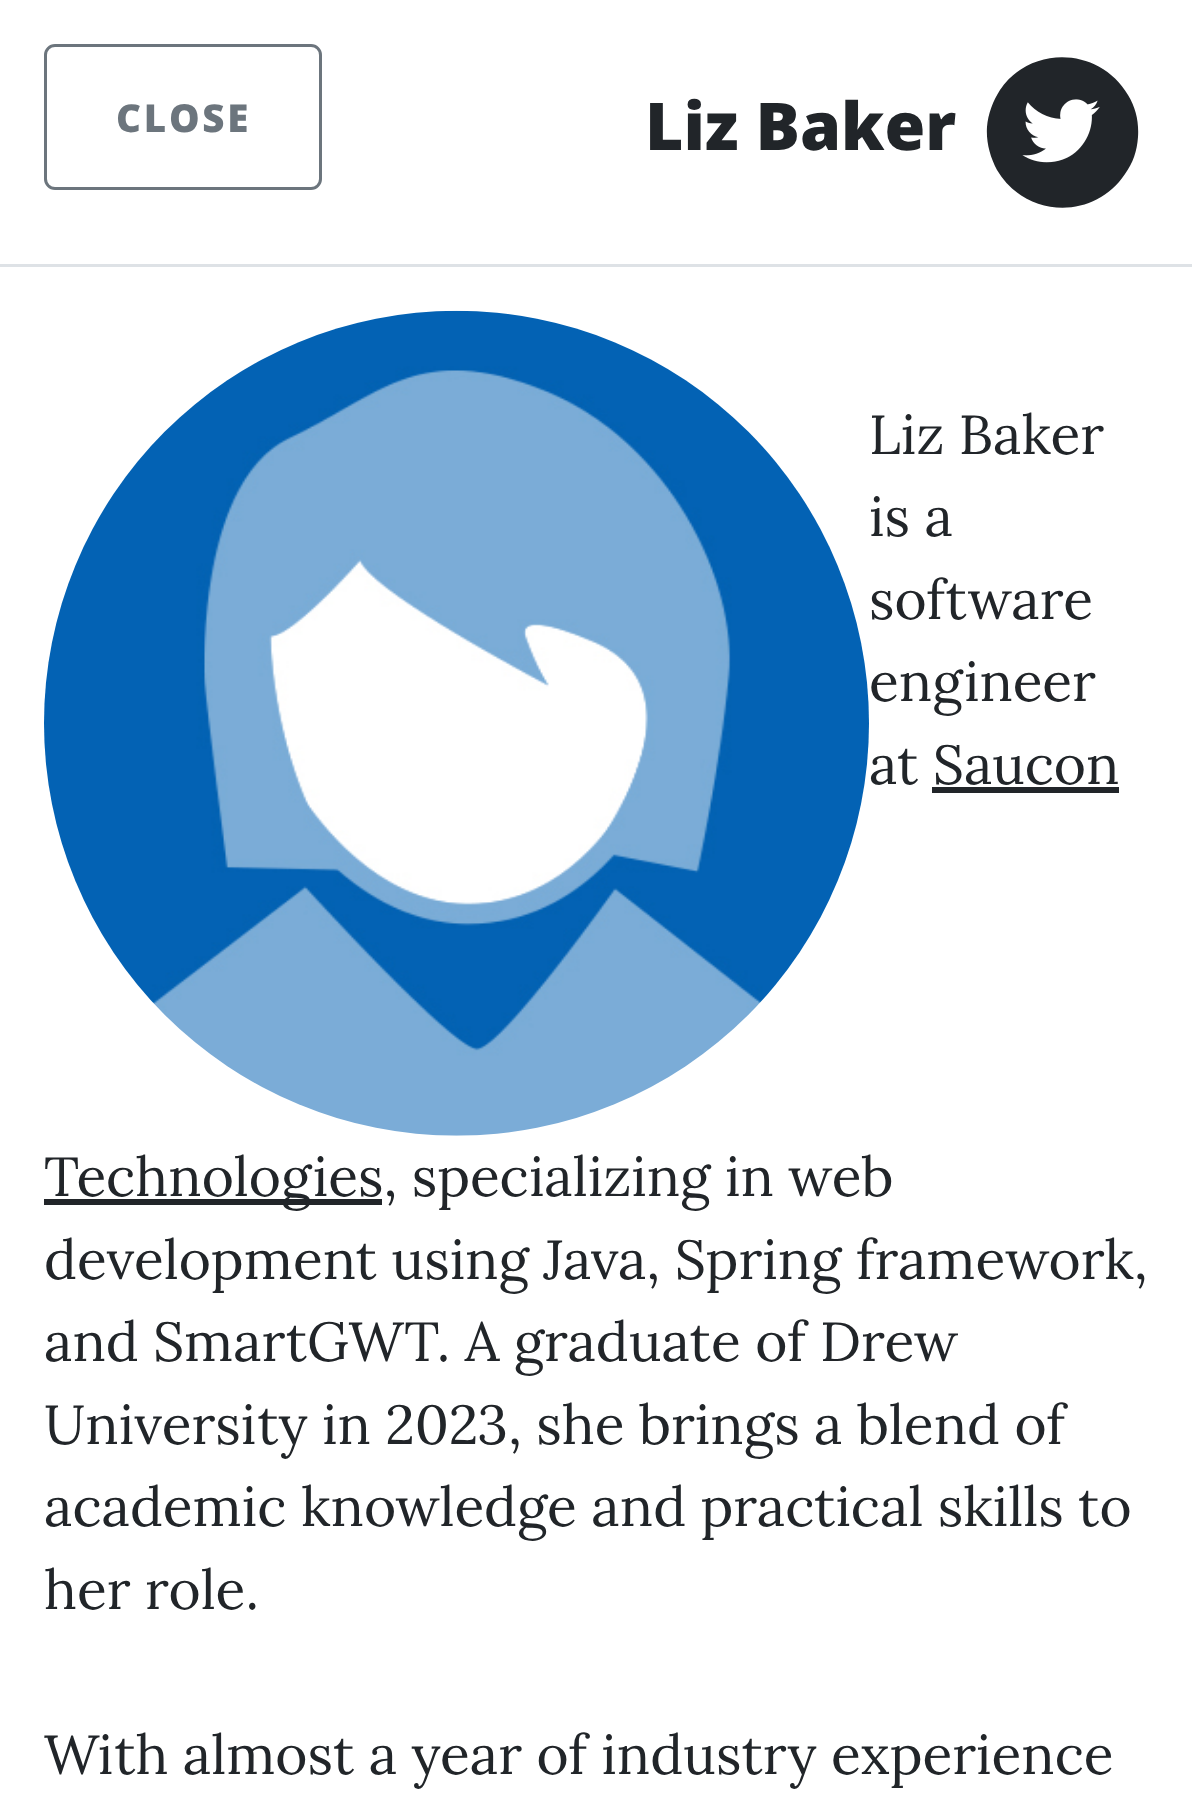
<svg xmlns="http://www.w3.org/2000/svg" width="1192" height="1793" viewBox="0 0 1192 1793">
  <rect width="100%" height="100%" fill="rgb(255,255,255)"/>
  <rect x="0" y="264" width="1192" height="3" fill="rgb(222,226,230)"/>
  <rect x="45.5" y="45.5" width="275" height="143" rx="9.5" fill="none" stroke="rgb(108,117,125)" stroke-width="3"/>
  <text x="116" y="132" font-family="Open Sans" font-size="38.5" font-weight="800" letter-spacing="2.75" fill="rgb(108,117,125)">CLOSE</text>
  <text x="645" y="150" font-family="Open Sans" font-size="66" font-weight="800" fill="rgb(33,37,41)">Liz Baker</text>
  <path d="M1128 95C1136 108 1139 122 1138 137C1137 151 1133 163 1125 174C1094 221 1025 218 997 170C990 157 986 142 987 127C988 114 993 101 1000 90C1031 44 1100 47 1128 95Z" fill="rgb(33,37,41)"/>
  <image x="1022" y="99" width="78" height="64" href="pic1.png"/>
  <image x="44" y="310" width="825" height="826" href="pic2.png"/>
  <g font-family="Lora" font-size="55" fill="rgb(33,37,41)">
    <text>
      <tspan x="869" y="454">Liz Baker</tspan>
      <tspan x="869" y="536">is a</tspan>
      <tspan x="869" y="619">software</tspan>
      <tspan x="869" y="701">engineer</tspan>
      <tspan x="869" y="784">at Saucon</tspan>
    </text>
  </g>
  <rect x="44" y="1199" width="338" height="6" fill="rgb(33,37,41)"/>
  <text x="44" y="1196" font-family="Lora" font-size="55" fill="rgb(33,37,41)">Technologies, specializing in web</text>
  <rect x="932" y="787" width="187" height="6" fill="rgb(33,37,41)"/>
  <g font-family="Lora" font-size="55" fill="rgb(33,37,41)">
    <text>
      <tspan x="44" y="1279">development using Java, Spring framework,</tspan>
      <tspan x="44" y="1361">and SmartGWT. A graduate of Drew</tspan>
      <tspan x="44" y="1444">University in 2023, she brings a blend of</tspan>
      <tspan x="44" y="1526">academic knowledge and practical skills to</tspan>
      <tspan x="44" y="1609">her role.</tspan>
    </text>
    <text x="44" y="1774">With almost a year of industry experience</text>
  </g>
</svg>
